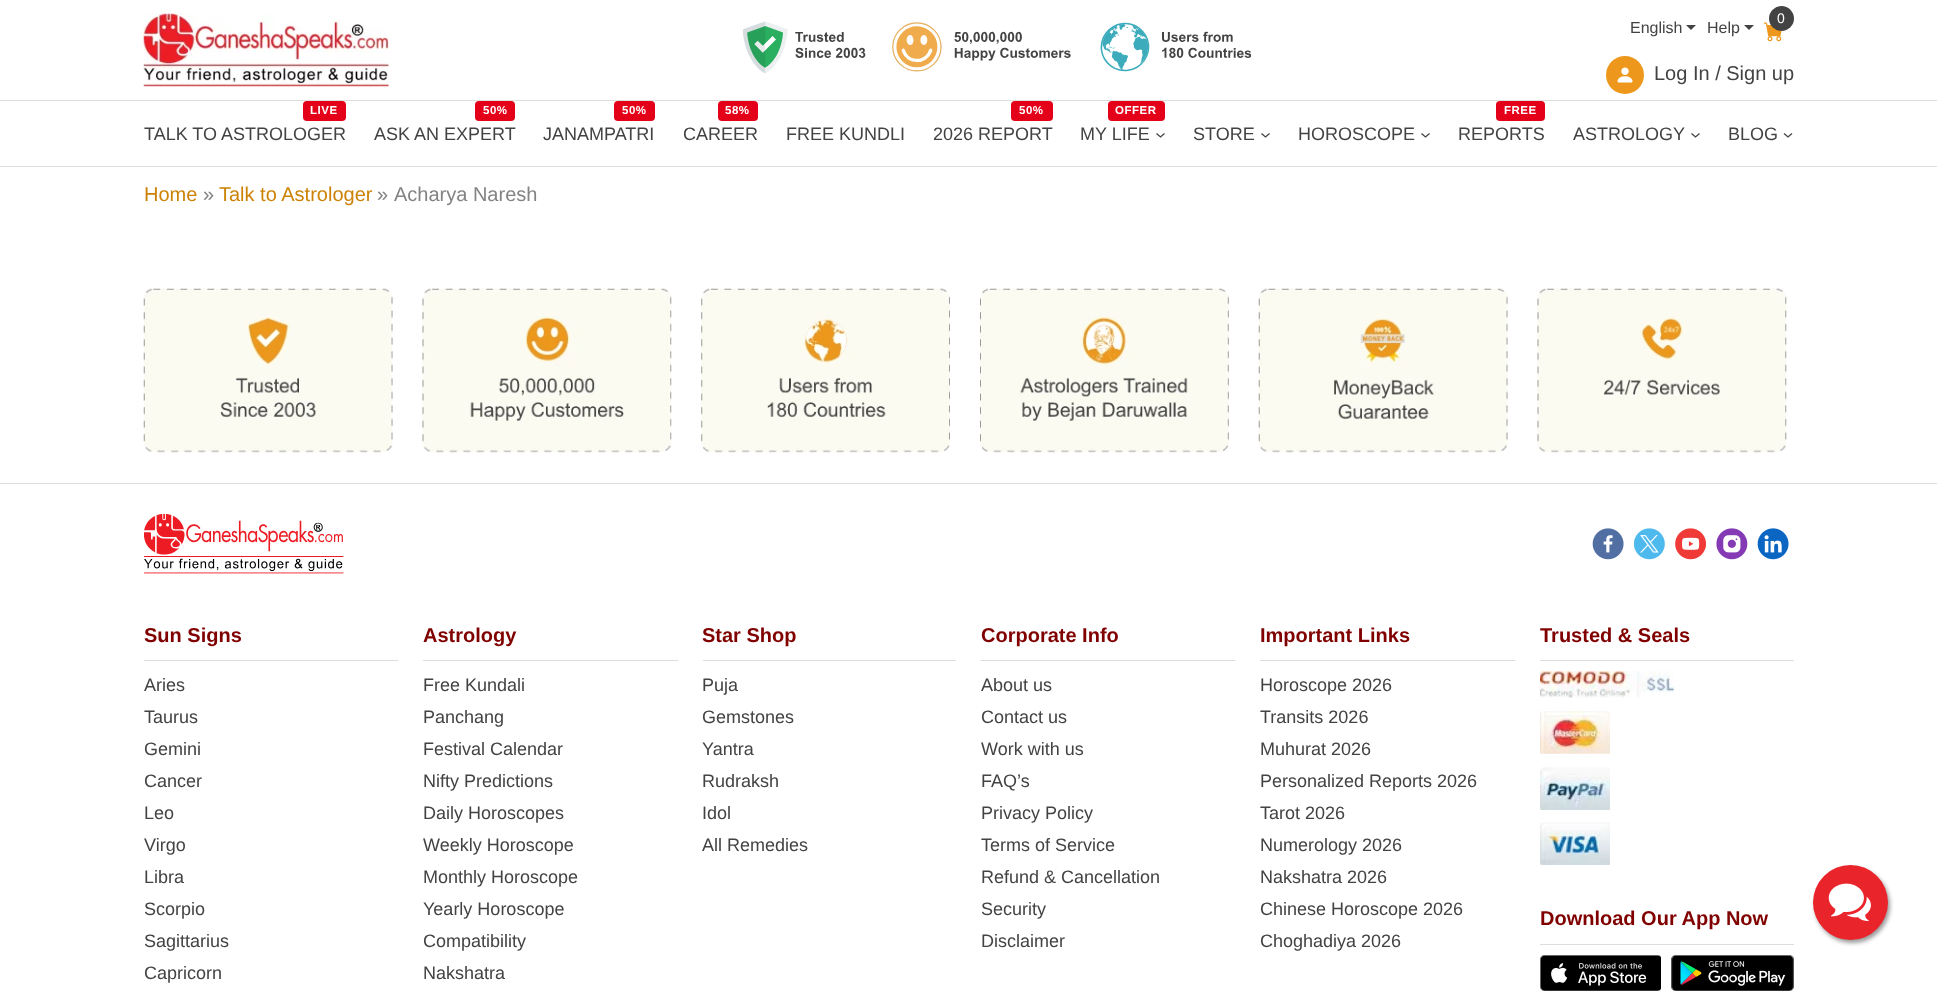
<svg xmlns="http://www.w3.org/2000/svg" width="1937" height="995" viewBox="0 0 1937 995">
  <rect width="100%" height="100%" fill="rgb(255,255,255)"/>
  <image x="143" y="13" width="246" height="74" href="pic1.png"/>
  <image x="743" y="21" width="508" height="53" href="pic2.png"/>
  <image x="1763" y="22" width="19" height="20" href="pic3.png"/>
  <circle cx="1781.5" cy="18.5" r="12.5" fill="rgb(67,67,67)"/>
  <text x="1777" y="23" font-family="Liberation Sans" font-size="14" fill="rgb(255,255,255)">0</text>
  <text x="1630" y="33" font-family="Liberation Sans" font-size="16" fill="rgb(67,67,67)">English</text>
  <path d="M1686 25H1696L1691 30Z" fill="rgb(67,67,67)"/>
  <text x="1707" y="33" font-family="Liberation Sans" font-size="16" fill="rgb(67,67,67)">Help</text>
  <path d="M1744 25H1754L1749 30Z" fill="rgb(67,67,67)"/>
  <circle cx="1625" cy="75" r="19" fill="rgb(237,152,28)"/>
  <image x="1617" y="67" width="16" height="16" href="pic4.png"/>
  <text x="1654" y="80" font-family="Liberation Sans" font-size="20" fill="rgb(67,67,67)">Log In / Sign up</text>
  <rect x="0" y="100" width="1937" height="1" fill="rgb(221,221,221)"/>
  <rect x="0" y="166" width="1937" height="1" fill="rgb(221,221,221)"/>
  <rect x="303" y="101" width="43" height="20" rx="4" fill="rgb(229,0,25)"/>
  <text x="310" y="114" font-family="Liberation Sans" font-size="11.5" font-weight="bold" letter-spacing="0.5" fill="rgb(255,255,255)">LIVE</text>
  <text x="144" y="140" font-family="Liberation Sans" font-size="18" fill="rgb(67,67,67)">TALK TO ASTROLOGER</text>
  <rect x="475" y="101" width="40" height="20" rx="4" fill="rgb(229,0,25)"/>
  <text x="483" y="114" font-family="Liberation Sans" font-size="11.5" font-weight="bold" letter-spacing="0.5" fill="rgb(255,255,255)">50%</text>
  <text x="374" y="140" font-family="Liberation Sans" font-size="18" fill="rgb(67,67,67)">ASK AN EXPERT</text>
  <rect x="614" y="101" width="41" height="20" rx="4" fill="rgb(229,0,25)"/>
  <text x="622" y="114" font-family="Liberation Sans" font-size="11.5" font-weight="bold" letter-spacing="0.5" fill="rgb(255,255,255)">50%</text>
  <text x="543" y="140" font-family="Liberation Sans" font-size="18" fill="rgb(67,67,67)">JANAMPATRI</text>
  <rect x="718" y="101" width="40" height="20" rx="4" fill="rgb(229,0,25)"/>
  <text x="725" y="114" font-family="Liberation Sans" font-size="11.5" font-weight="bold" letter-spacing="0.5" fill="rgb(255,255,255)">58%</text>
  <g font-family="Liberation Sans" font-size="18" fill="rgb(67,67,67)">
    <text x="683" y="140">CAREER</text>
    <text x="786" y="140">FREE KUNDLI</text>
  </g>
  <rect x="1011" y="101" width="42" height="20" rx="4" fill="rgb(229,0,25)"/>
  <text x="1019" y="114" font-family="Liberation Sans" font-size="11.5" font-weight="bold" letter-spacing="0.5" fill="rgb(255,255,255)">50%</text>
  <text x="933" y="140" font-family="Liberation Sans" font-size="18" fill="rgb(67,67,67)">2026 REPORT</text>
  <rect x="1108" y="101" width="57" height="20" rx="4" fill="rgb(229,0,25)"/>
  <text x="1115" y="114" font-family="Liberation Sans" font-size="11.5" font-weight="bold" letter-spacing="0.5" fill="rgb(255,255,255)">OFFER</text>
  <text x="1080" y="140" font-family="Liberation Sans" font-size="18" fill="rgb(67,67,67)">MY LIFE</text>
  <path d="M1156.5 133.5L1160.5 137L1164.5 133.5" fill="none" stroke="rgb(67,67,67)" stroke-width="1.3"/>
  <text x="1193" y="140" font-family="Liberation Sans" font-size="18" fill="rgb(67,67,67)">STORE</text>
  <path d="M1261.5 133.5L1265.5 137L1269.5 133.5" fill="none" stroke="rgb(67,67,67)" stroke-width="1.3"/>
  <text x="1298" y="140" font-family="Liberation Sans" font-size="18" fill="rgb(67,67,67)">HOROSCOPE</text>
  <path d="M1421.5 133.5L1425.5 137L1429.5 133.5" fill="none" stroke="rgb(67,67,67)" stroke-width="1.3"/>
  <rect x="1496" y="101" width="49" height="20" rx="4" fill="rgb(229,0,25)"/>
  <text x="1504" y="114" font-family="Liberation Sans" font-size="11.5" font-weight="bold" letter-spacing="0.5" fill="rgb(255,255,255)">FREE</text>
  <g font-family="Liberation Sans" font-size="18" fill="rgb(67,67,67)">
    <text x="1458" y="140">REPORTS</text>
    <text x="1573" y="140">ASTROLOGY</text>
  </g>
  <path d="M1691.5 133.5L1695.5 137L1699.5 133.5" fill="none" stroke="rgb(67,67,67)" stroke-width="1.3"/>
  <text x="1728" y="140" font-family="Liberation Sans" font-size="18" fill="rgb(67,67,67)">BLOG</text>
  <path d="M1784 133.5L1788 137L1792 133.5" fill="none" stroke="rgb(67,67,67)" stroke-width="1.3"/>
  <text x="144" y="201" font-family="Liberation Sans" font-size="20" fill="rgb(204,130,5)">Home</text>
  <text x="203" y="201" font-family="Liberation Sans" font-size="20" fill="rgb(131,131,131)">»</text>
  <text x="219" y="201" font-family="Liberation Sans" font-size="20" fill="rgb(204,130,5)">Talk to Astrologer</text>
  <g font-family="Liberation Sans" font-size="20" fill="rgb(131,131,131)">
    <text x="377" y="201">»</text>
    <text x="394" y="201">Acharya Naresh</text>
  </g>
  <image x="143" y="288" width="250" height="165" href="pic5.png"/>
  <image x="422" y="288" width="250" height="165" href="pic6.png"/>
  <image x="701" y="288" width="249" height="165" href="pic7.png"/>
  <image x="980" y="288" width="249" height="165" href="pic8.png"/>
  <image x="1258" y="288" width="250" height="165" href="pic9.png"/>
  <image x="1537" y="288" width="250" height="165" href="pic10.png"/>
  <rect x="0" y="483" width="1937" height="1" fill="rgb(221,221,221)"/>
  <image x="144" y="514" width="200" height="60" href="pic11.png"/>
  <image x="1592" y="528" width="32" height="32" href="pic12.png"/>
  <image x="1633" y="528" width="32" height="32" href="pic13.png"/>
  <image x="1675" y="528" width="31" height="32" href="pic14.png"/>
  <image x="1716" y="528" width="32" height="32" href="pic15.png"/>
  <image x="1757" y="528" width="32" height="32" href="pic16.png"/>
  <rect x="144" y="660" width="254" height="1" fill="rgb(221,221,221)"/>
  <text x="144" y="642" font-family="Liberation Sans" font-size="20" font-weight="bold" fill="rgb(128,0,0)">Sun Signs</text>
  <g font-family="Liberation Sans" font-size="18" fill="rgb(67,67,67)">
    <text>
      <tspan x="144" y="691">Aries</tspan>
      <tspan x="144" y="723">Taurus</tspan>
      <tspan x="144" y="755">Gemini</tspan>
      <tspan x="144" y="787">Cancer</tspan>
      <tspan x="144" y="819">Leo</tspan>
      <tspan x="144" y="851">Virgo</tspan>
      <tspan x="144" y="883">Libra</tspan>
      <tspan x="144" y="915">Scorpio</tspan>
      <tspan x="144" y="947">Sagittarius</tspan>
      <tspan x="144" y="979">Capricorn</tspan>
    </text>
  </g>
  <rect x="423" y="660" width="255" height="1" fill="rgb(221,221,221)"/>
  <text x="423" y="642" font-family="Liberation Sans" font-size="20" font-weight="bold" fill="rgb(128,0,0)">Astrology</text>
  <g font-family="Liberation Sans" font-size="18" fill="rgb(67,67,67)">
    <text>
      <tspan x="423" y="691">Free Kundali</tspan>
      <tspan x="423" y="723">Panchang</tspan>
      <tspan x="423" y="755">Festival Calendar</tspan>
      <tspan x="423" y="787">Nifty Predictions</tspan>
      <tspan x="423" y="819">Daily Horoscopes</tspan>
      <tspan x="423" y="851">Weekly Horoscope</tspan>
      <tspan x="423" y="883">Monthly Horoscope</tspan>
      <tspan x="423" y="915">Yearly Horoscope</tspan>
      <tspan x="423" y="947">Compatibility</tspan>
      <tspan x="423" y="979">Nakshatra</tspan>
    </text>
  </g>
  <rect x="703" y="660" width="253" height="1" fill="rgb(221,221,221)"/>
  <text x="702" y="642" font-family="Liberation Sans" font-size="20" font-weight="bold" fill="rgb(128,0,0)">Star Shop</text>
  <g font-family="Liberation Sans" font-size="18" fill="rgb(67,67,67)">
    <text>
      <tspan x="702" y="691">Puja</tspan>
      <tspan x="702" y="723">Gemstones</tspan>
      <tspan x="702" y="755">Yantra</tspan>
      <tspan x="702" y="787">Rudraksh</tspan>
      <tspan x="702" y="819">Idol</tspan>
      <tspan x="702" y="851">All Remedies</tspan>
    </text>
  </g>
  <rect x="981" y="660" width="254" height="1" fill="rgb(221,221,221)"/>
  <text x="981" y="642" font-family="Liberation Sans" font-size="20" font-weight="bold" fill="rgb(128,0,0)">Corporate Info</text>
  <g font-family="Liberation Sans" font-size="18" fill="rgb(67,67,67)">
    <text>
      <tspan x="981" y="691">About us</tspan>
      <tspan x="981" y="723">Contact us</tspan>
      <tspan x="981" y="755">Work with us</tspan>
      <tspan x="981" y="787">FAQ’s</tspan>
      <tspan x="981" y="819">Privacy Policy</tspan>
      <tspan x="981" y="851">Terms of Service</tspan>
      <tspan x="981" y="883">Refund &amp; Cancellation</tspan>
      <tspan x="981" y="915">Security</tspan>
      <tspan x="981" y="947">Disclaimer</tspan>
    </text>
  </g>
  <rect x="1260" y="660" width="255" height="1" fill="rgb(221,221,221)"/>
  <text x="1260" y="642" font-family="Liberation Sans" font-size="20" font-weight="bold" fill="rgb(128,0,0)">Important Links</text>
  <g font-family="Liberation Sans" font-size="18" fill="rgb(67,67,67)">
    <text>
      <tspan x="1260" y="691">Horoscope 2026</tspan>
      <tspan x="1260" y="723">Transits 2026</tspan>
      <tspan x="1260" y="755">Muhurat 2026</tspan>
      <tspan x="1260" y="787">Personalized Reports 2026</tspan>
      <tspan x="1260" y="819">Tarot 2026</tspan>
      <tspan x="1260" y="851">Numerology 2026</tspan>
      <tspan x="1260" y="883">Nakshatra 2026</tspan>
      <tspan x="1260" y="915">Chinese Horoscope 2026</tspan>
      <tspan x="1260" y="947">Choghadiya 2026</tspan>
    </text>
  </g>
  <rect x="1540" y="660" width="254" height="1" fill="rgb(221,221,221)"/>
  <text x="1540" y="642" font-family="Liberation Sans" font-size="20" font-weight="bold" fill="rgb(128,0,0)">Trusted &amp; Seals</text>
  <image x="1540" y="671" width="134" height="27" href="pic17.png"/>
  <image x="1540" y="711" width="70" height="43" href="pic18.png"/>
  <image x="1540" y="767" width="70" height="43" href="pic19.png"/>
  <image x="1540" y="822" width="70" height="43" href="pic20.png"/>
  <rect x="1540" y="944" width="254" height="1" fill="rgb(221,221,221)"/>
  <text x="1540" y="925" font-family="Liberation Sans" font-size="20" font-weight="bold" fill="rgb(128,0,0)">Download Our App Now</text>
  <image x="1540" y="955" width="121" height="36" href="pic21.png"/>
  <image x="1671" y="955" width="123" height="36" href="pic22.png"/>
  <rect x="1815" y="868" width="75" height="75" rx="37.5" fill="rgb(153,153,153)" filter="blur(2px)"/>
  <circle cx="1850.5" cy="902.5" r="37.5" fill="rgb(233,36,43)"/>
  <image x="1828" y="883" width="43" height="39" href="pic23.png"/>
</svg>
